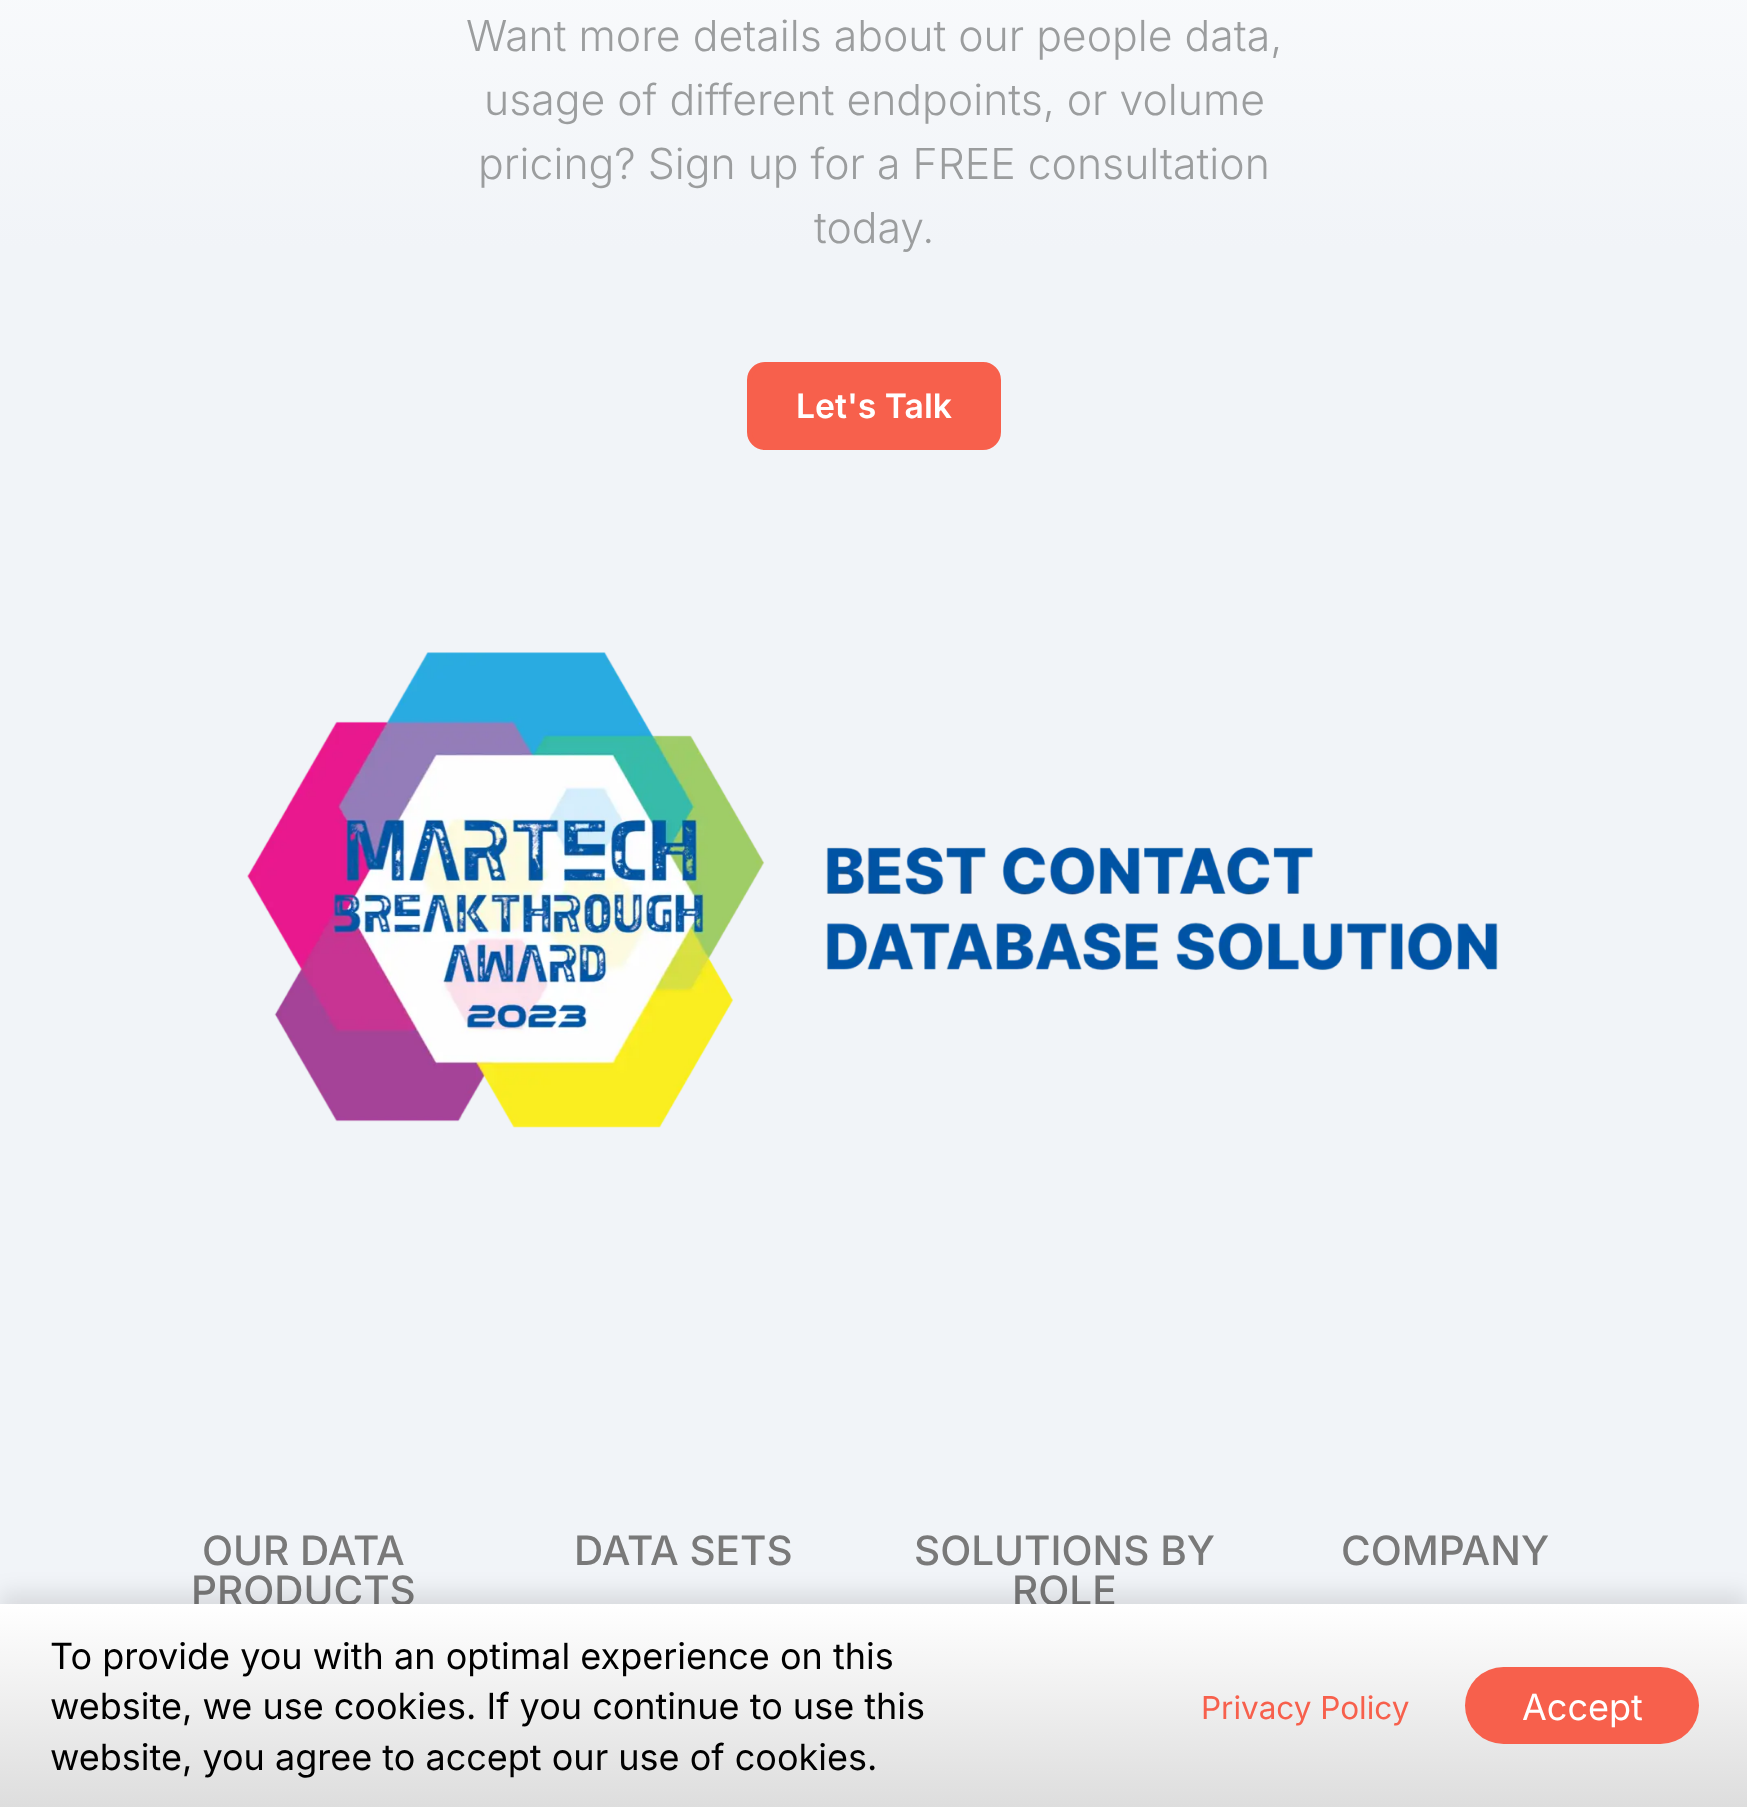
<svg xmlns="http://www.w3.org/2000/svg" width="1747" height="1807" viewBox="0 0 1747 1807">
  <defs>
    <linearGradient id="g1" gradientUnits="userSpaceOnUse" x1="874" y1="-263" x2="874" y2="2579"><stop offset="0" stop-color="rgb(255,255,255)"/><stop offset="0.18" stop-color="rgb(241,244,248)"/></linearGradient>
    <linearGradient id="g2" gradientUnits="userSpaceOnUse" x1="874" y1="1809" x2="874" y2="1604"><stop offset="0" stop-color="rgb(221,221,221)"/><stop offset="1" stop-color="rgb(255,255,255)"/></linearGradient>
  </defs>
  <rect width="100%" height="100%" fill="rgb(255,255,255)"/>
  <rect x="0" y="0" width="1747" height="1604" fill="url(#g1)"/>
  <g font-family="Inter" font-size="42.75" font-weight="300" fill="rgb(155,157,158)">
    <text x="466" y="51">Want more details about our people data,</text>
    <text x="484" y="115">usage of different endpoints, or volume</text>
    <text x="478" y="179">pricing? Sign up for a FREE consultation</text>
    <text x="814" y="243">today.</text>
  </g>
  <rect x="749.5" y="364.5" width="249" height="83" rx="15.5" fill="rgb(247,96,76)" stroke="rgb(247,96,76)" stroke-width="5"/>
  <text x="796" y="418" font-family="Inter" font-size="33.75" font-weight="600" fill="rgb(255,255,255)">Let's Talk</text>
  <image x="247" y="652" width="1251" height="476" href="pic1.png"/>
  <g font-family="Inter" font-size="40.5" font-weight="500" fill="rgb(121,121,121)">
    <text x="202" y="1565">OUR DATA</text>
    <text x="191" y="1605">PRODUCTS</text>
    <text x="574" y="1565">DATA SETS</text>
    <text x="914" y="1565">SOLUTIONS BY</text>
    <text x="1012" y="1605">ROLE</text>
    <text x="1341" y="1565">COMPANY</text>
  </g>
  <rect x="0" y="1593" width="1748" height="205" fill="rgba(0,0,0,0.1)" filter="blur(11px)"/>
  <rect x="0" y="1604" width="1747" height="203" fill="url(#g2)"/>
  <g font-family="Inter" font-size="36" fill="rgb(0,0,0)">
    <text>
      <tspan x="50" y="1669">To provide you with an optimal experience on this</tspan>
      <tspan x="50" y="1719">website, we use cookies. If you continue to use this</tspan>
      <tspan x="50" y="1770">website, you agree to accept our use of cookies.</tspan>
    </text>
  </g>
  <text x="1201" y="1719" font-family="Inter" font-size="31.5" fill="rgb(247,96,76)">Privacy Policy</text>
  <rect x="1465" y="1667" width="234" height="77" rx="38.5" fill="rgb(247,96,76)"/>
  <text x="1522" y="1720" font-family="Inter" font-size="36" fill="rgb(255,255,255)">Accept</text>
</svg>
